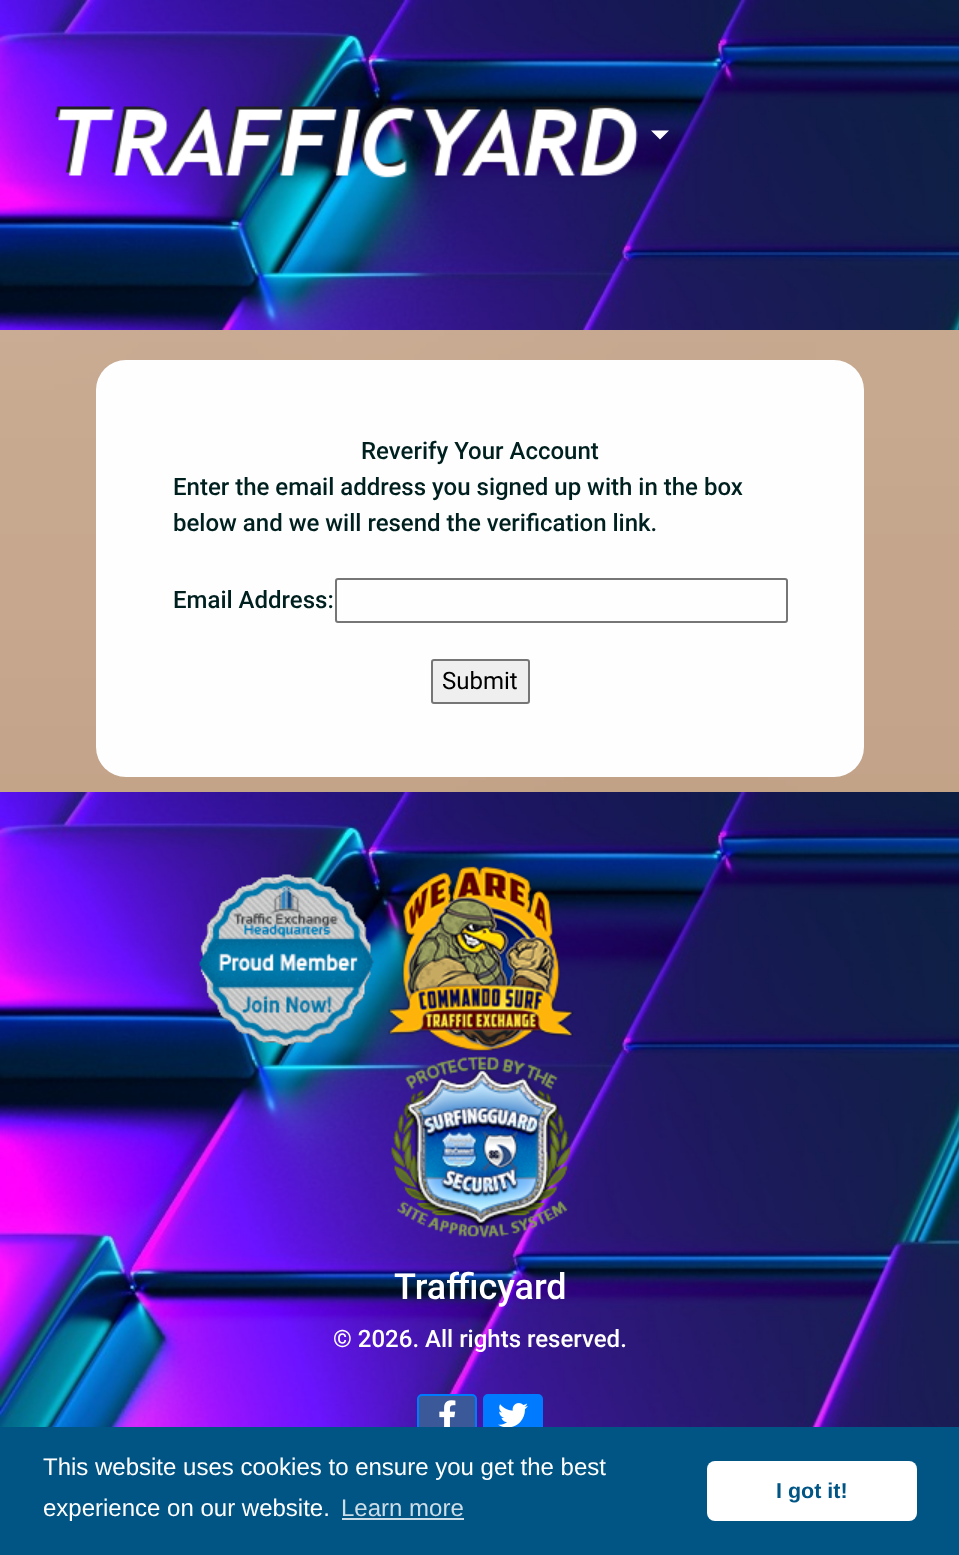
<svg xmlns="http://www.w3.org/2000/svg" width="959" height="1555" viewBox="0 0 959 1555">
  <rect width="100%" height="100%" fill="rgb(255,255,255)"/>
  <image x="0" y="330" width="959" height="462" href="pic1.png"/>
  <image x="0" y="0" width="959" height="330" href="pic2.png"/>
  <image x="55" y="105" width="583" height="73" href="pic3.png"/>
  <path d="M651 130.5H669L660 139.5Z" fill="rgb(255,255,255)"/>
  <rect x="96" y="360" width="768" height="417" rx="30" fill="rgb(254,254,254)"/>
  <g font-family="Roboto" font-size="24" font-weight="500" fill="rgb(0,32,32)">
    <text x="361" y="459">Reverify Your Account</text>
    <text>
      <tspan x="173" y="495">Enter the email address you signed up with in the box</tspan>
      <tspan x="173" y="531">below and we will resend the verification link.</tspan>
    </text>
    <text x="173" y="608">Email Address:</text>
  </g>
  <rect x="336" y="579" width="451" height="43" rx="2" fill="none" stroke="rgb(118,118,118)" stroke-width="2"/>
  <rect x="432" y="660" width="97" height="43" rx="2" fill="rgb(239,239,239)" stroke="rgb(118,118,118)" stroke-width="2"/>
  <text x="442" y="689" font-family="Roboto" font-size="24" fill="rgb(0,0,0)">Submit</text>
  <image x="0" y="792" width="959" height="635" href="pic4.png"/>
  <image x="199" y="874" width="175" height="172" href="pic5.png"/>
  <image x="388" y="865" width="186" height="187" href="pic6.png"/>
  <image x="391" y="1056" width="180" height="182" href="pic7.png"/>
  <text x="394" y="1299" font-family="Roboto" font-size="36" font-weight="500" fill="rgb(255,255,255)">Trafficyard</text>
  <text x="333" y="1347" font-family="Roboto" font-size="24" font-weight="500" fill="rgb(255,255,255)">© 2026. All rights reserved.</text>
  <rect x="418" y="1395" width="58" height="47" rx="4" fill="rgb(59,89,152)" stroke="rgb(0,123,255)" stroke-width="2"/>
  <image x="439" y="1400" width="17" height="27" href="pic8.png"/>
  <rect x="484" y="1395" width="58" height="47" rx="4" fill="rgb(0,123,255)" stroke="rgb(0,123,255)" stroke-width="2"/>
  <image x="498" y="1403" width="30" height="24" href="pic9.png"/>
  <rect x="0" y="1427" width="959" height="128" fill="rgb(0,85,133)"/>
  <g font-family="Liberation Sans" font-size="24" fill="rgb(255,255,255)">
    <text>
      <tspan x="43" y="1475">This website uses cookies to ensure you get the best</tspan>
      <tspan x="43" y="1516">experience on our website.</tspan>
    </text>
  </g>
  <text x="341" y="1516" font-family="Liberation Sans" font-size="24" fill="rgb(204,221,231)">Learn more</text>
  <rect x="342" y="1518" width="122" height="2" fill="rgb(204,221,231)"/>
  <rect x="707" y="1461" width="210" height="60" rx="8" fill="rgb(255,255,255)"/>
  <text x="776" y="1498" font-family="Liberation Sans" font-size="21.5" font-weight="bold" fill="rgb(0,85,133)">I got it!</text>
</svg>
